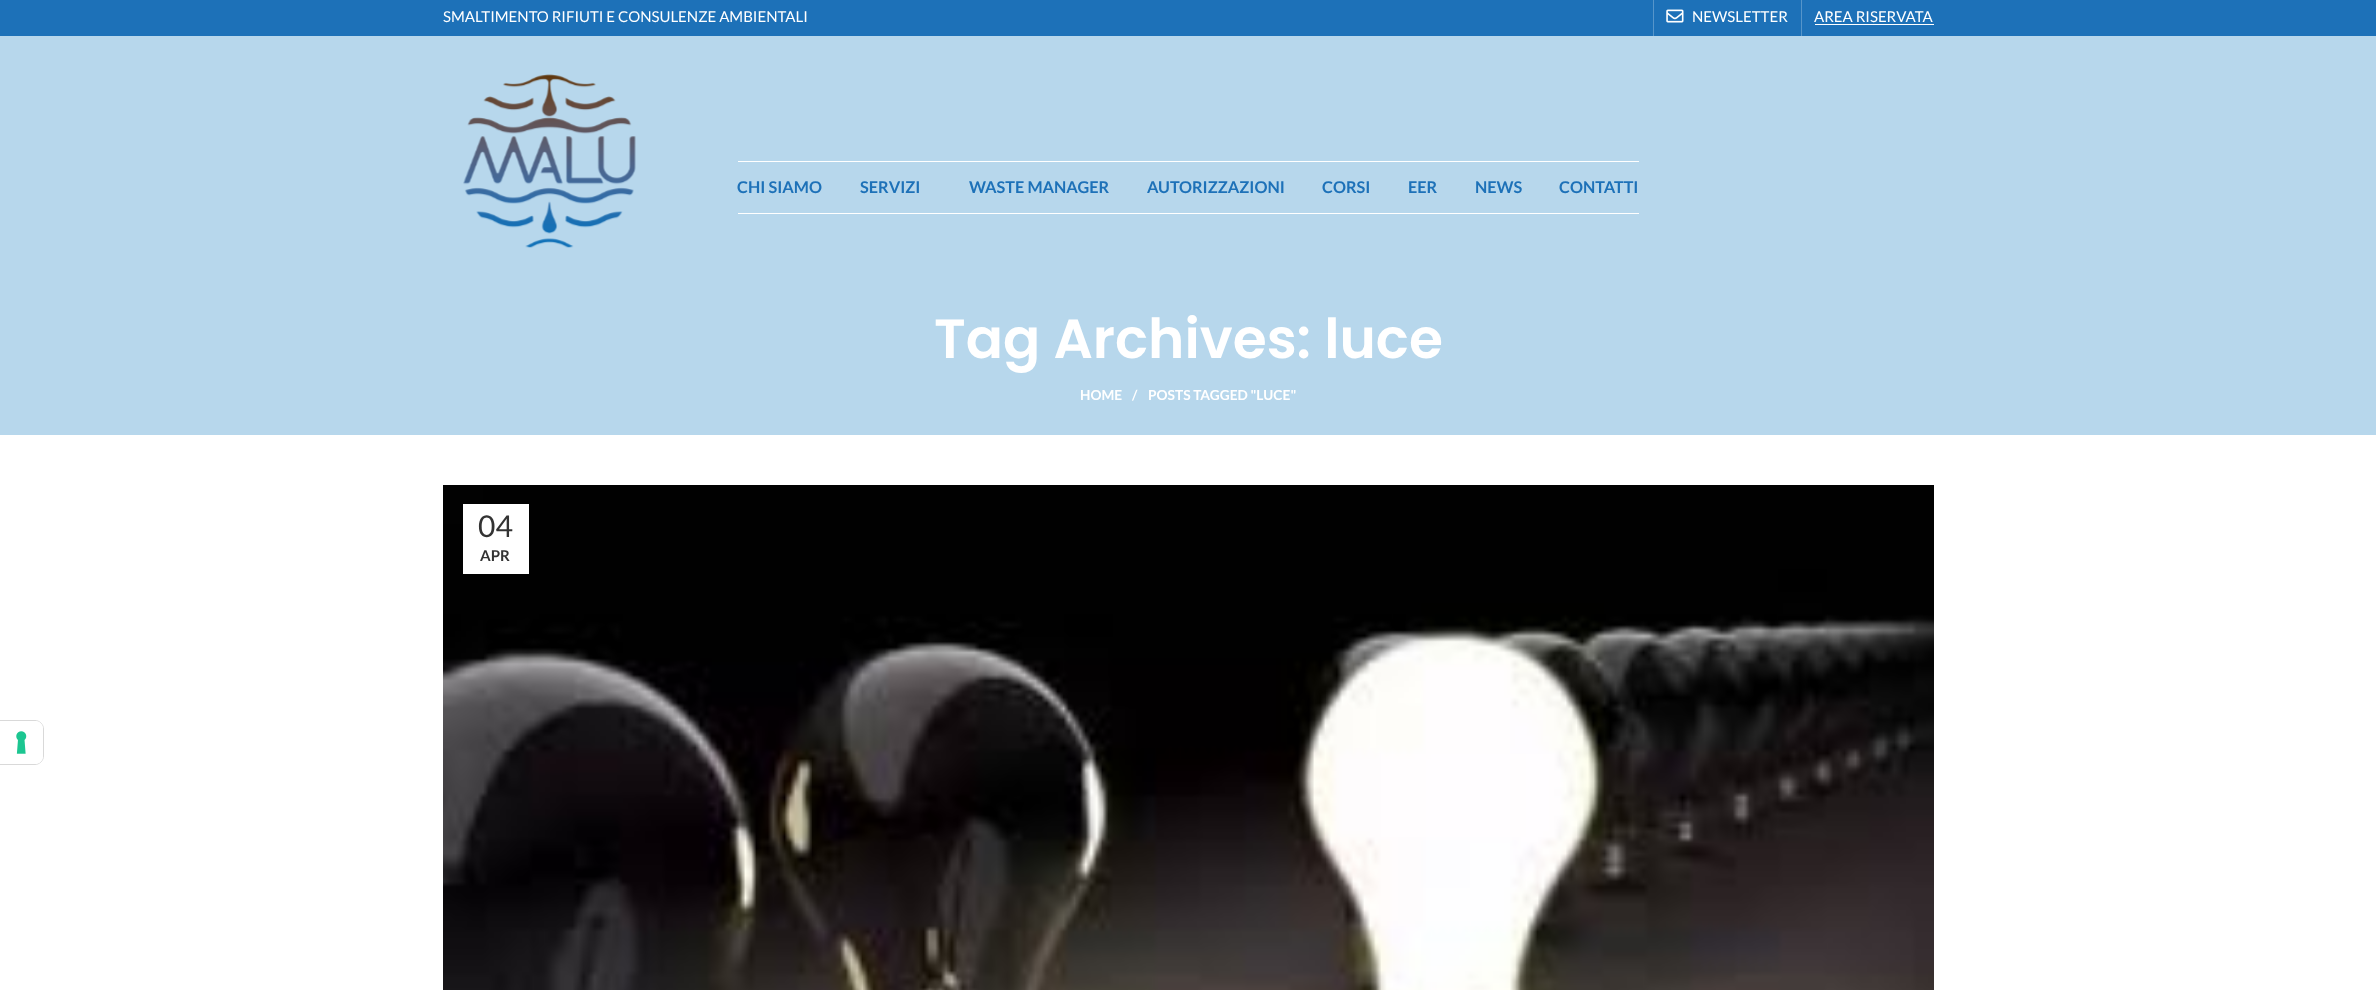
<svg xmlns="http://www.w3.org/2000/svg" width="2376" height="990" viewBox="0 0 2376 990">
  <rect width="100%" height="100%" fill="rgb(255,255,255)"/>
  <rect x="0" y="0" width="2376" height="36" fill="rgb(29,113,184)"/>
  <text x="443" y="22" font-family="Lato" font-size="15" fill="rgb(255,255,255)">SMALTIMENTO RIFIUTI E CONSULENZE AMBIENTALI</text>
  <rect x="1653" y="0" width="1" height="36" fill="rgb(86,149,202)"/>
  <image x="1666" y="9" width="18" height="14" href="pic1.png"/>
  <text x="1692" y="22" font-family="Lato" font-size="15" fill="rgb(255,255,255)">NEWSLETTER</text>
  <rect x="1801" y="0" width="1" height="36" fill="rgb(86,149,202)"/>
  <text x="1814" y="22" font-family="Lato" font-size="15" fill="rgb(255,255,255)">AREA RISERVATA</text>
  <rect x="1815" y="24" width="119" height="1" fill="rgb(255,255,255)"/>
  <rect x="0" y="36" width="2376" height="399" fill="rgb(183,215,236)"/>
  <image x="463" y="74" width="173" height="174" href="pic2.png"/>
  <rect x="738" y="161" width="901" height="1" fill="rgb(255,255,255)"/>
  <rect x="738" y="213" width="901" height="1" fill="rgb(255,255,255)"/>
  <g font-family="Lato" font-size="16.25" font-weight="bold" fill="rgb(29,113,184)">
    <text x="737" y="193">CHI SIAMO</text>
    <text x="860" y="193">SERVIZI</text>
    <text x="969" y="193">WASTE MANAGER</text>
    <text x="1147" y="193">AUTORIZZAZIONI</text>
    <text x="1322" y="193">CORSI</text>
    <text x="1408" y="193">EER</text>
    <text x="1475" y="193">NEWS</text>
    <text x="1559" y="193">CONTATTI</text>
  </g>
  <text x="934" y="358" font-family="Poppins" font-size="55" font-weight="600" fill="rgb(255,255,255)">Tag Archives: luce</text>
  <g font-family="Lato" font-size="13.75" font-weight="bold" fill="rgb(255,255,255)">
    <text x="1080" y="400">HOME</text>
    <text x="1132" y="400">/</text>
    <text x="1148" y="400">POSTS TAGGED "LUCE"</text>
  </g>
  <image x="443" y="485" width="1491" height="505" href="pic3.png"/>
  <rect x="463" y="504" width="66" height="70" fill="rgb(255,255,255)"/>
  <text x="478" y="537" font-family="Lato" font-size="30" fill="rgb(51,51,51)">04</text>
  <text x="480" y="561" font-family="Lato" font-size="15" font-weight="bold" fill="rgb(51,51,51)">APR</text>
  <path d="M-.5 720.5H35C39.5 720.5 43.5 724.5 43.5 729V756C43.5 760.5 39.5 764.5 35 764.5H-.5Z" fill="none" stroke="rgb(217,217,217)"/>
  <path d="M0 721H35C39.5 721 43 724.5 43 729V756C43 760.5 39.5 764 35 764H0Z" fill="rgb(255,255,255)"/>
  <image x="16" y="731" width="11" height="23" href="pic4.png"/>
</svg>
